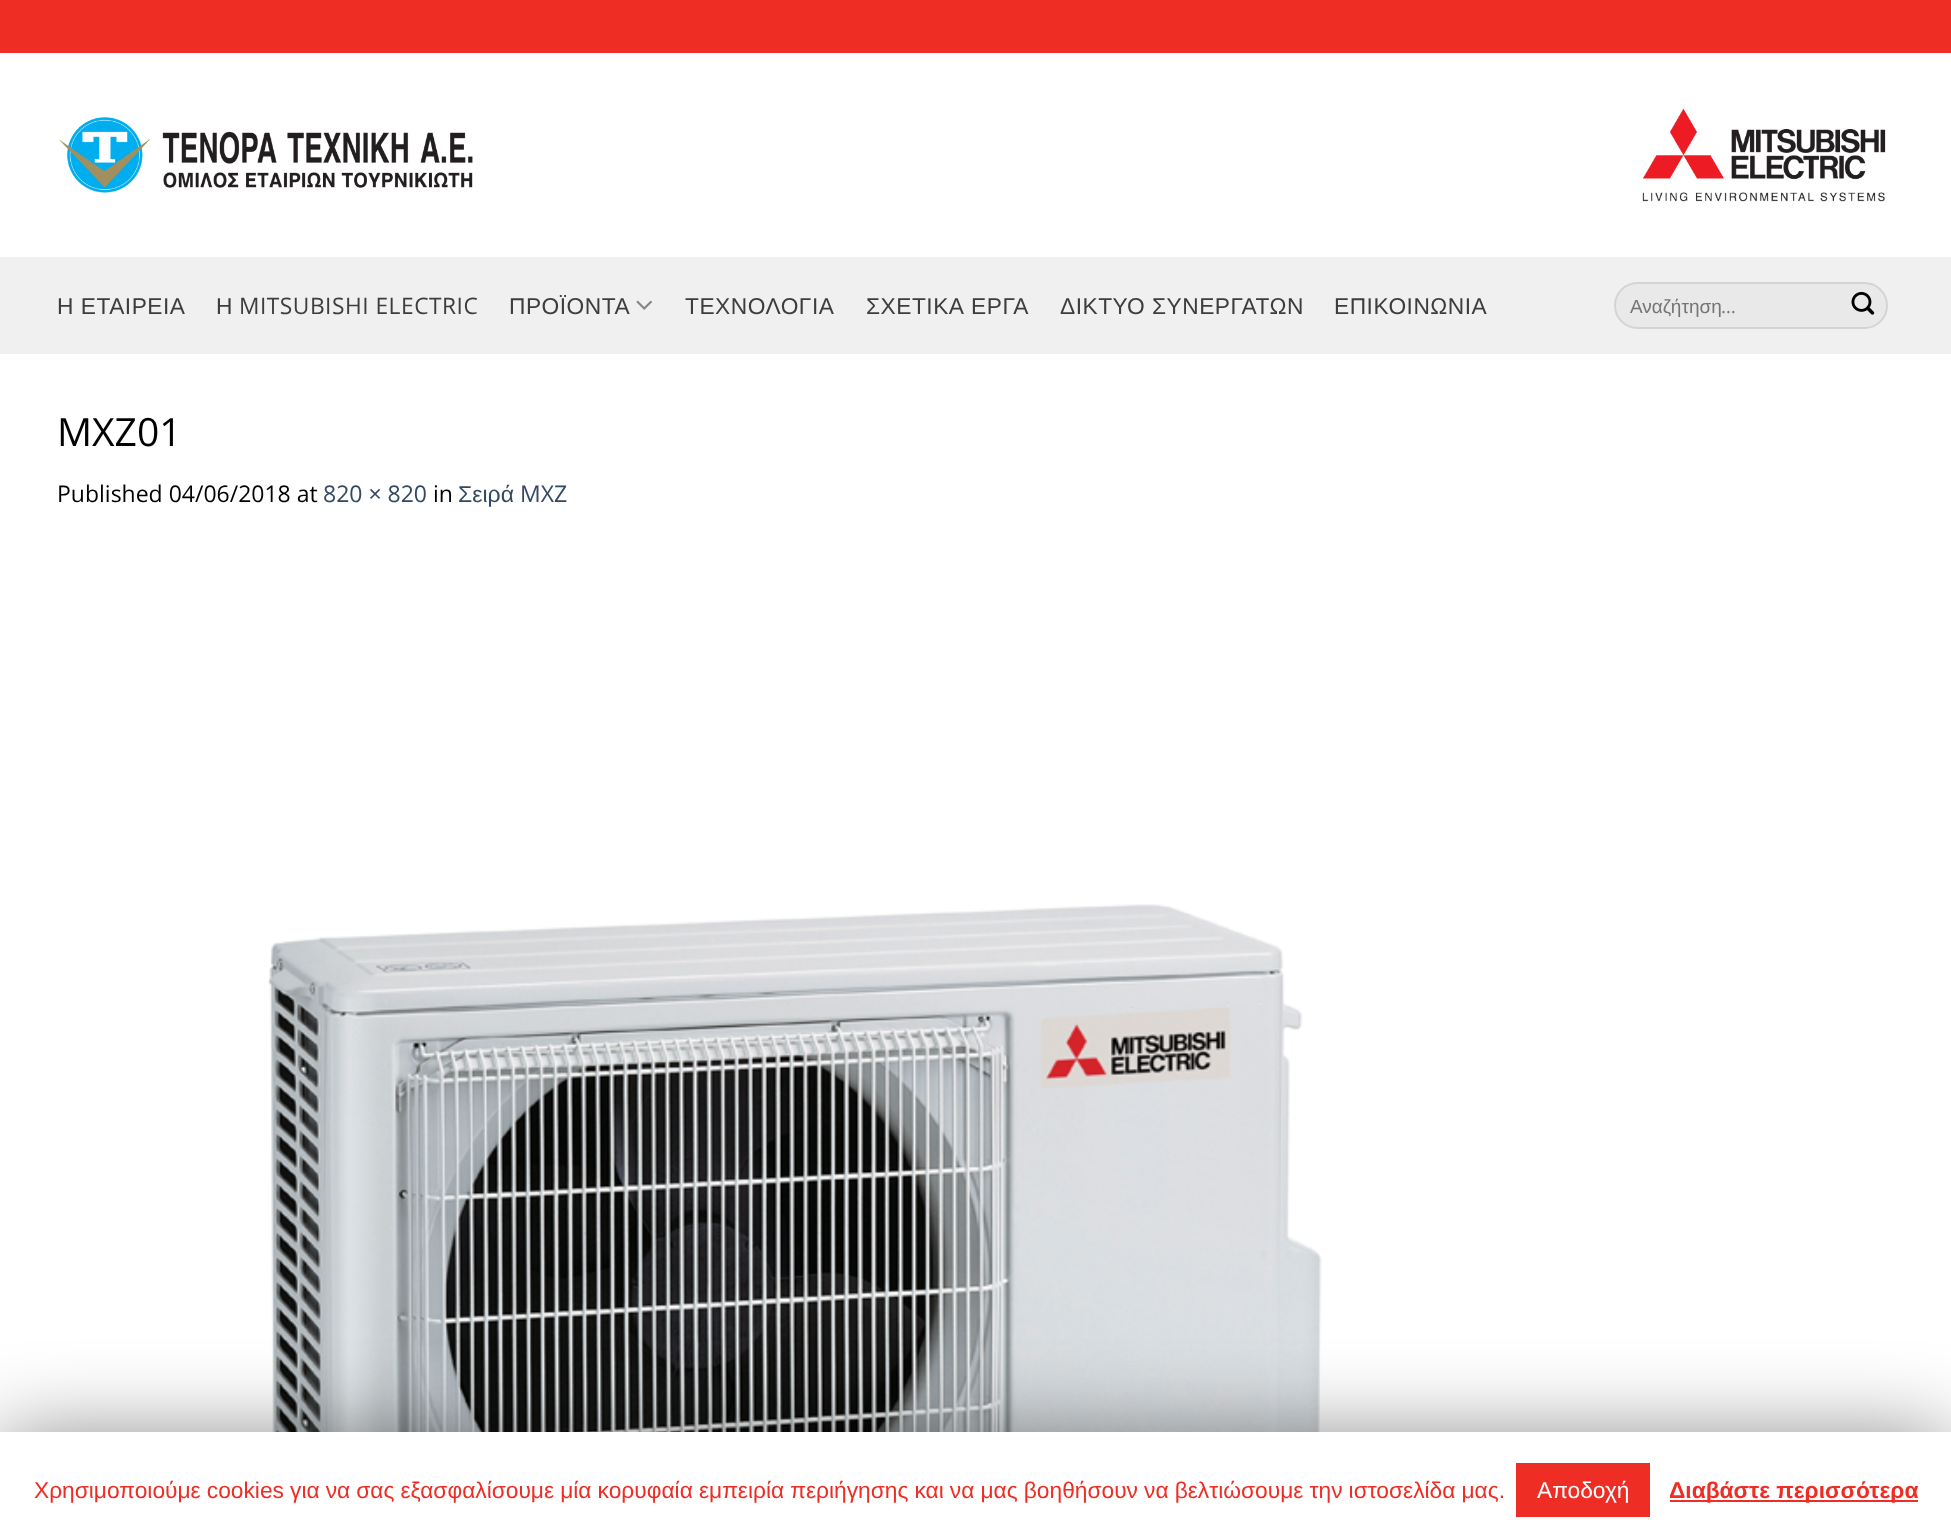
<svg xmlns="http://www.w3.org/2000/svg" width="1951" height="1539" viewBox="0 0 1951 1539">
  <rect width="100%" height="100%" fill="rgb(255,255,255)"/>
  <rect x="0" y="0" width="1951" height="53" fill="rgb(238,45,36)"/>
  <image x="59" y="117" width="414" height="76" href="pic1.png"/>
  <image x="1642" y="108" width="244" height="94" href="pic2.png"/>
  <rect x="0" y="257" width="1951" height="97" fill="rgb(240,240,240)"/>
  <g font-family="Liberation Sans" font-size="22.75" letter-spacing="0.5" fill="rgb(61,61,61)">
    <text x="57" y="314">Η ΕΤΑΙΡΕΙΑ</text>
    <text x="216" y="314">Η</text>
  </g>
  <text x="239" y="314" font-family="Open Sans" font-size="22.75" letter-spacing="0.5" fill="rgb(61,61,61)">MITSUBISHI ELECTRIC</text>
  <text x="509" y="314" font-family="Liberation Sans" font-size="22.75" letter-spacing="0.5" fill="rgb(61,61,61)">ΠΡΟΪΟΝΤΑ</text>
  <image x="636" y="300" width="16" height="10" href="pic3.png"/>
  <g font-family="Liberation Sans" font-size="22.75" letter-spacing="0.5" fill="rgb(61,61,61)">
    <text x="685" y="314">ΤΕΧΝΟΛΟΓΙΑ</text>
    <text x="866" y="314" word-spacing="1">ΣΧΕΤΙΚΑ ΕΡΓΑ</text>
    <text x="1060" y="314">ΔΙΚΤΥΟ ΣΥΝΕΡΓΑΤΩΝ</text>
    <text x="1334" y="314">ΕΠΙΚΟΙΝΩΝΙΑ</text>
  </g>
  <rect x="1614" y="282" width="274" height="47" rx="23.5" fill="rgb(233,233,233)"/>
  <rect x="1615" y="283" width="272" height="45" rx="22.5" fill="none" stroke="rgba(0,0,0,0.09)" stroke-width="2"/>
  <text x="1630" y="313" font-family="Liberation Sans" font-size="19" fill="rgb(117,117,117)">Αναζήτηση</text>
  <text x="1721" y="313" font-family="Open Sans" font-size="19" fill="rgb(117,117,117)">…</text>
  <image x="1851" y="292" width="24" height="23" href="pic4.png"/>
  <text x="57" y="446" font-family="Open Sans" font-size="39" fill="rgb(0,0,0)">MXZ01</text>
  <text x="57" y="502" font-family="Open Sans" font-size="23" fill="rgb(0,0,0)">Published 04/06/2018 at</text>
  <text x="323" y="502" font-family="Open Sans" font-size="23" fill="rgb(51,72,98)">820 × 820</text>
  <text x="433" y="502" font-family="Open Sans" font-size="23" fill="rgb(0,0,0)">in</text>
  <text x="458" y="502" font-family="Liberation Sans" font-size="23" fill="rgb(51,72,98)">Σειρά</text>
  <text x="520" y="502" font-family="Open Sans" font-size="23" fill="rgb(51,72,98)">MXZ</text>
  <image x="268" y="904" width="1054" height="528" href="pic5.png"/>
  <rect x="0" y="1440" width="1951" height="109" fill="rgba(0,0,0,0.5)" filter="blur(44px)"/>
  <rect x="0" y="1432" width="1951" height="107" fill="rgb(255,255,255)"/>
  <text x="34" y="1498" word-spacing="-0.25" font-family="Liberation Sans" font-size="22.75" fill="rgb(238,45,36)">Χρησιμοποιούμε cookies για να σας εξασφαλίσουμε μία κορυφαία εμπειρία περιήγησης και να μας βοηθήσουν να βελτιώσουμε την ιστοσελίδα μας.</text>
  <rect x="1516" y="1463" width="134" height="54" fill="rgb(238,45,36)"/>
  <text x="1537" y="1498" font-family="Liberation Sans" font-size="22.75" fill="rgb(255,255,255)">Αποδοχή</text>
  <rect x="1670" y="1500" width="248" height="2" fill="rgb(238,45,36)"/>
  <text x="1669" y="1498" font-family="Liberation Sans" font-size="22.75" font-weight="bold" fill="rgb(238,45,36)">Διαβάστε περισσότερα</text>
</svg>
